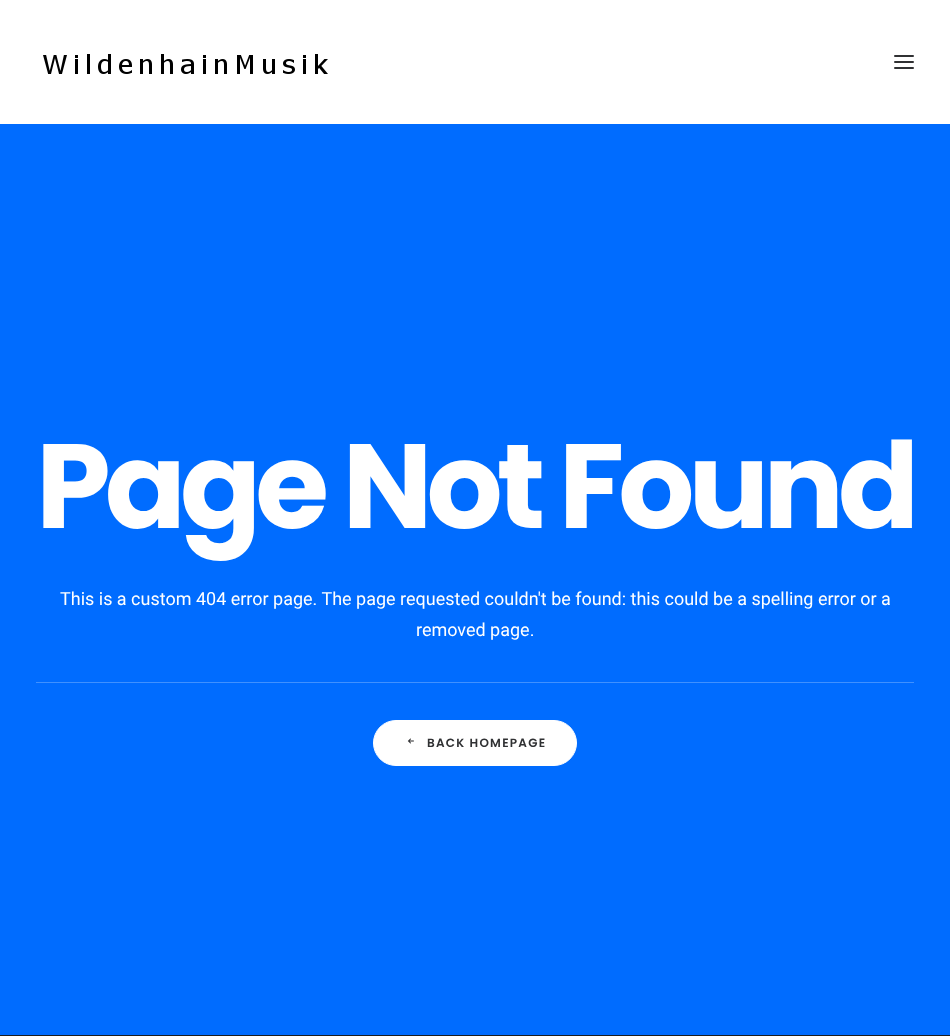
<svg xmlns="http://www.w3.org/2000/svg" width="950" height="1036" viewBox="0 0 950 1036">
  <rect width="100%" height="100%" fill="rgb(0,108,255)"/>
  <rect x="0" y="0" width="950" height="124" fill="rgb(255,255,255)"/>
  <image x="43" y="54" width="285" height="20" href="pic1.png"/>
  <rect x="894" y="61" width="20" height="2" rx="1" fill="rgb(48,49,51)"/>
  <rect x="894" y="55" width="20" height="2" rx="1" fill="rgb(48,49,51)"/>
  <rect x="894" y="67" width="20" height="2" rx="1" fill="rgb(48,49,51)"/>
  <text x="36" y="528" font-family="Poppins" font-size="119.75" font-weight="bold" letter-spacing="-6" fill="rgb(255,255,255)">Page Not Found</text>
  <g font-family="Roboto" font-size="18" fill="rgb(255,255,255)">
    <text x="60" y="605">This is a custom 404 error page. The page requested couldn't be found: this could be a spelling error or a</text>
    <text x="416" y="636">removed page.</text>
  </g>
  <rect x="36" y="682" width="878" height="1" fill="rgb(64,145,255)"/>
  <rect x="373.5" y="720.5" width="203" height="45" rx="22.5" fill="rgb(255,255,255)" stroke="rgb(255,255,255)"/>
  <image x="407" y="738" width="7" height="6" href="pic2.png"/>
  <text x="427" y="747" font-family="Poppins" font-size="12" font-weight="600" letter-spacing="1.25" fill="rgb(48,49,51)">BACK HOMEPAGE</text>
  <rect x="0" y="1035" width="950" height="1" fill="rgb(27,29,31)"/>
</svg>
